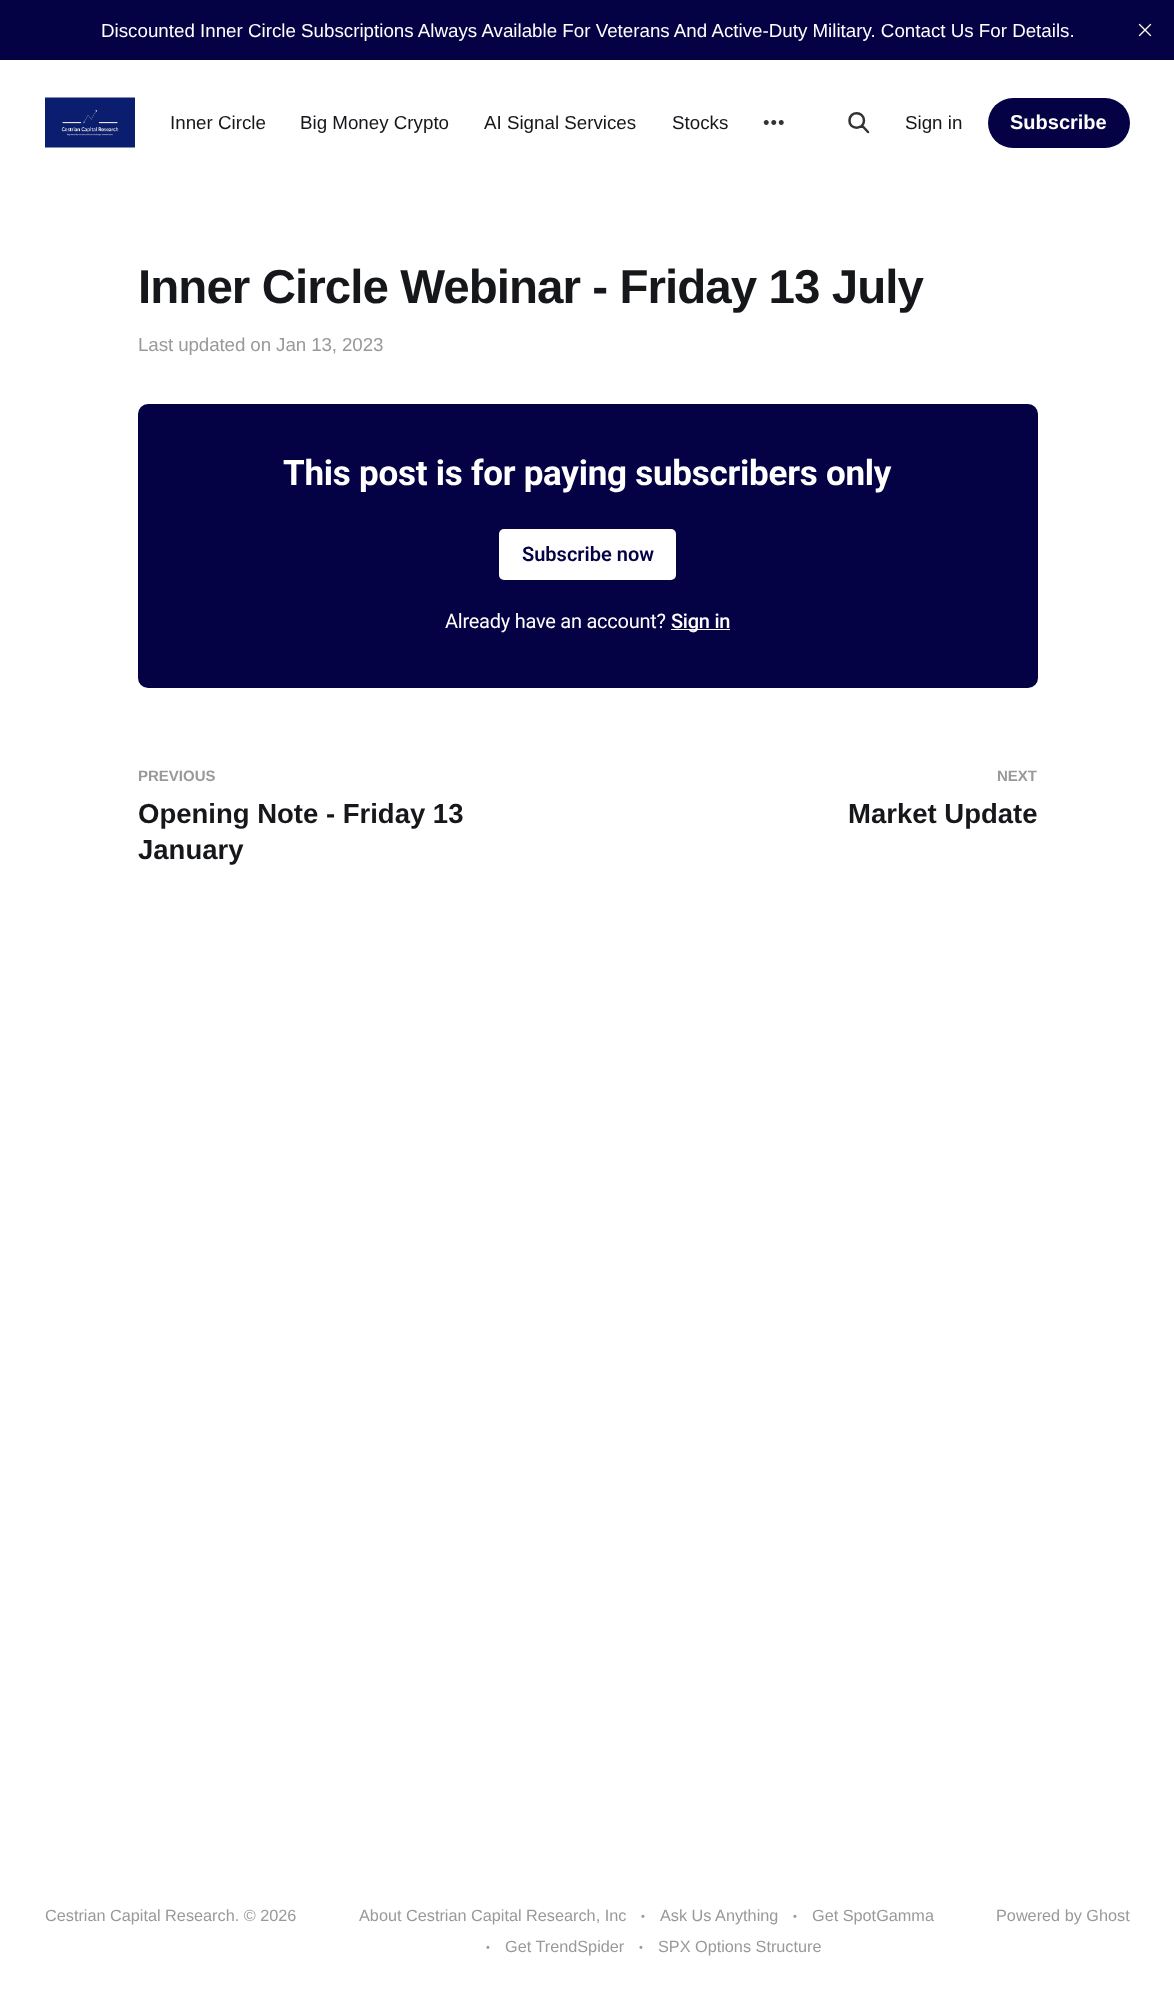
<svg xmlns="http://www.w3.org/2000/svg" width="1174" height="2000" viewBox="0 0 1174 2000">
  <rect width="100%" height="100%" fill="rgb(255,255,255)"/>
  <rect x="0" y="0" width="1174" height="60" fill="rgb(4,2,68)"/>
  <text x="101" y="37" font-family="Liberation Sans" font-size="18.75" fill="rgb(255,255,255)">Discounted Inner Circle Subscriptions Always Available For Veterans And Active-Duty Military. Contact Us For Details.</text>
  <image x="1138" y="23" width="14" height="14" href="pic1.png"/>
  <image x="45" y="97" width="90" height="51" href="pic2.png"/>
  <g font-family="Liberation Sans" font-size="18.75" fill="rgb(21,23,26)">
    <text x="170" y="129">Inner Circle</text>
    <text x="300" y="129">Big Money Crypto</text>
    <text x="484" y="129">AI Signal Services</text>
    <text x="672" y="129">Stocks</text>
  </g>
  <image x="763" y="120" width="21" height="5" href="pic3.png"/>
  <path d="M868 132L862 125.5ZM864 120.5C864 130 849 130 849.5 120.5C849.5 110.5 864 111 864 120.5Z" fill="none" stroke="rgb(51,51,51)" stroke-width="2.5" stroke-linecap="round" stroke-linejoin="round"/>
  <text x="905" y="129" font-family="Liberation Sans" font-size="18.75" fill="rgb(21,23,26)">Sign in</text>
  <rect x="988" y="98" width="142" height="50" rx="25" fill="rgb(4,2,68)"/>
  <text x="1010" y="129" font-family="Liberation Sans" font-size="20" font-weight="bold" fill="rgb(255,255,255)">Subscribe</text>
  <text x="138" y="303" font-family="Liberation Sans" font-size="47.5" font-weight="bold" letter-spacing="-0.95" fill="rgb(21,23,26)">Inner Circle Webinar - Friday 13 July</text>
  <text x="138" y="351" font-family="Liberation Sans" font-size="18.75" letter-spacing="-0.1" fill="rgb(153,153,153)">Last updated on Jan 13, 2023</text>
  <rect x="138" y="404" width="900" height="284" rx="10" fill="rgb(4,2,68)"/>
  <text x="283" y="485" font-family="Roboto" font-size="35" font-weight="bold" letter-spacing="-0.25" fill="rgb(255,255,255)">This post is for paying subscribers only</text>
  <rect x="499" y="529" width="177" height="51" rx="5" fill="rgb(255,255,255)"/>
  <text x="522" y="561" font-family="Roboto" font-size="20" font-weight="600" fill="rgb(4,2,68)">Subscribe now</text>
  <text x="445" y="628" font-family="Roboto" font-size="20" letter-spacing="-0.25" fill="rgb(255,255,255)">Already have an account?</text>
  <rect x="671" y="629" width="59" height="1" fill="rgb(255,255,255)"/>
  <text x="671" y="628" font-family="Roboto" font-size="20" font-weight="500" letter-spacing="-0.25" fill="rgb(255,255,255)">Sign in</text>
  <text x="138" y="781" font-family="Liberation Sans" font-size="15" font-weight="bold" fill="rgb(153,153,153)">PREVIOUS</text>
  <g font-family="Liberation Sans" font-size="27.5" font-weight="bold" fill="rgb(21,23,26)">
    <text>
      <tspan x="138" y="823">Opening Note - Friday 13</tspan>
      <tspan x="138" y="859">January</tspan>
    </text>
  </g>
  <text x="997" y="781" font-family="Liberation Sans" font-size="15" font-weight="bold" fill="rgb(153,153,153)">NEXT</text>
  <text x="848" y="823" font-family="Liberation Sans" font-size="27.5" font-weight="bold" fill="rgb(21,23,26)">Market Update</text>
  <g font-family="Liberation Sans" font-size="16.25" fill="rgb(153,153,153)">
    <text x="45" y="1921">Cestrian Capital Research. © 2026</text>
    <text x="359" y="1921">About Cestrian Capital Research, Inc</text>
  </g>
  <text x="641" y="1920" font-family="Liberation Sans" font-size="11" fill="rgb(153,153,153)">•</text>
  <text x="660" y="1921" font-family="Liberation Sans" font-size="16.25" fill="rgb(153,153,153)">Ask Us Anything</text>
  <text x="793" y="1920" font-family="Liberation Sans" font-size="11" fill="rgb(153,153,153)">•</text>
  <text x="812" y="1921" font-family="Liberation Sans" font-size="16.25" fill="rgb(153,153,153)">Get SpotGamma</text>
  <text x="486" y="1951" font-family="Liberation Sans" font-size="11" fill="rgb(153,153,153)">•</text>
  <text x="505" y="1952" font-family="Liberation Sans" font-size="16.25" fill="rgb(153,153,153)">Get TrendSpider</text>
  <text x="639" y="1951" font-family="Liberation Sans" font-size="11" fill="rgb(153,153,153)">•</text>
  <g font-family="Liberation Sans" font-size="16.25" fill="rgb(153,153,153)">
    <text x="658" y="1952">SPX Options Structure</text>
    <text x="996" y="1921">Powered by Ghost</text>
  </g>
</svg>
